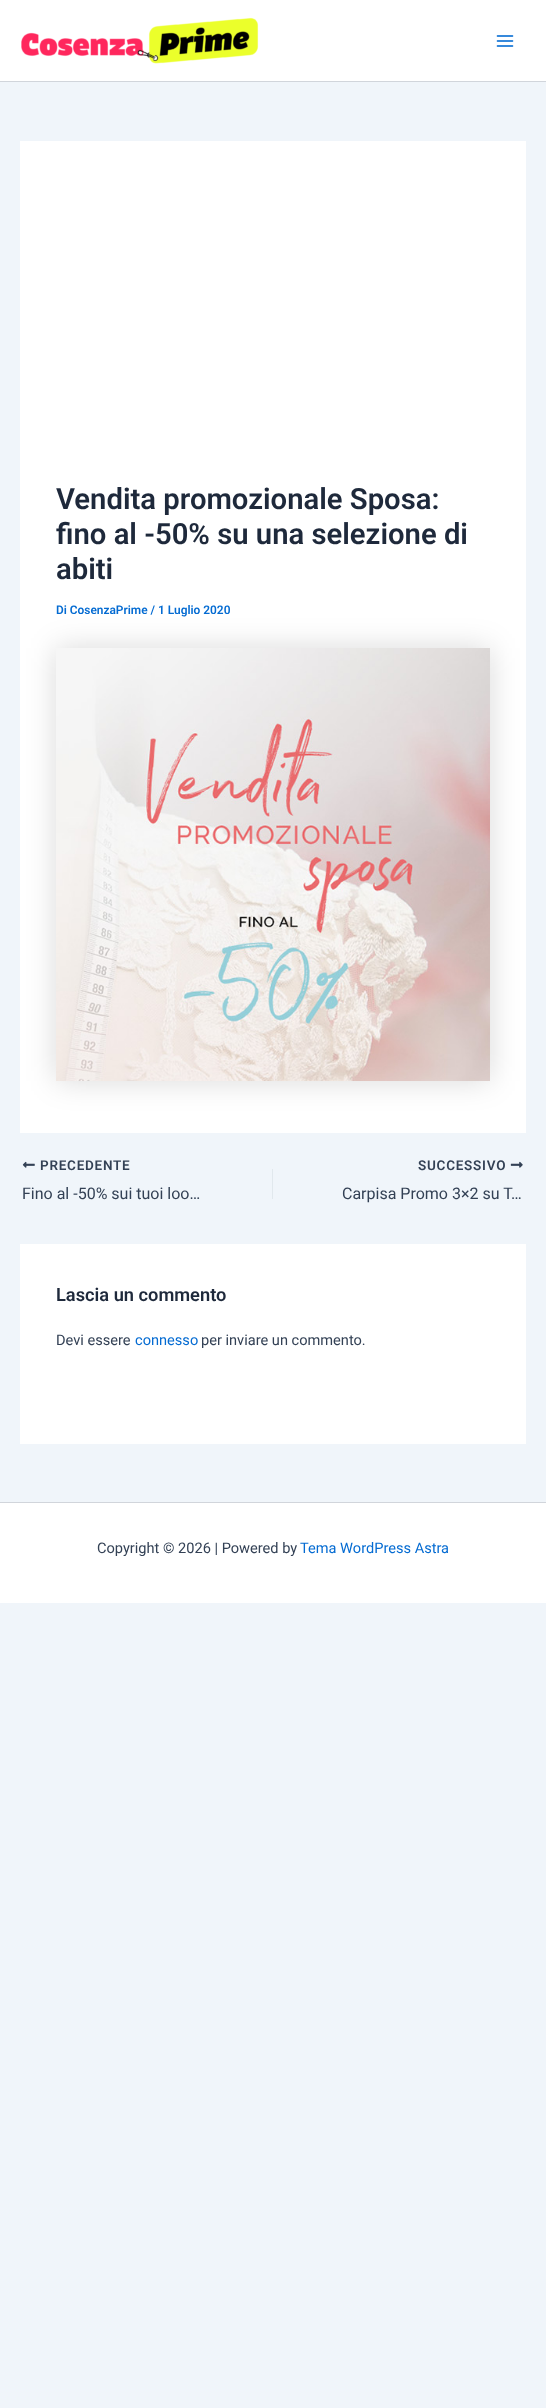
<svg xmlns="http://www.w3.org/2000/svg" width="546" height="2408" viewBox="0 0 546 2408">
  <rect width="100%" height="100%" fill="rgb(240,245,250)"/>
  <rect x="0" y="0" width="546" height="81" fill="rgb(255,255,255)"/>
  <rect x="0" y="81" width="546" height="1" fill="rgb(209,213,219)"/>
  <image x="21" y="17" width="238" height="47" href="pic1.png"/>
  <image x="496" y="35" width="18" height="12" href="pic2.png"/>
  <rect x="20" y="141" width="506" height="992" fill="rgb(255,255,255)"/>
  <g font-family="Roboto" font-size="29.25" font-weight="600" fill="rgb(30,41,59)">
    <text>
      <tspan x="56" y="509">Vendita promozionale Sposa:</tspan>
      <tspan x="56" y="544">fino al -50% su una selezione di</tspan>
      <tspan x="56" y="579">abiti</tspan>
    </text>
  </g>
  <rect x="56" y="648" width="434" height="433" fill="rgba(0,0,0,0.15)" filter="blur(15px)"/>
  <text x="56" y="614" font-family="Roboto" font-size="11.9" font-weight="600" fill="rgb(4,107,210)">Di CosenzaPrime / 1 Luglio 2020</text>
  <image x="56" y="648" width="434" height="433" href="pic3.png"/>
  <image x="22" y="1161" width="13" height="7" href="pic4.png"/>
  <text x="40" y="1170" font-family="Roboto" font-size="13.5" font-weight="600" letter-spacing="0.75" fill="rgb(51,65,85)">PRECEDENTE</text>
  <text x="22" y="1199" font-family="Roboto" font-size="16" fill="rgb(51,65,85)">Fino al -50% sui tuoi loo…</text>
  <rect x="272" y="1169" width="1" height="30" fill="rgb(225,232,237)"/>
  <text x="418" y="1170" font-family="Roboto" font-size="13.5" font-weight="600" letter-spacing="0.75" fill="rgb(51,65,85)">SUCCESSIVO</text>
  <image x="510" y="1161" width="13" height="7" href="pic5.png"/>
  <text x="342" y="1199" font-family="Roboto" font-size="16" fill="rgb(51,65,85)">Carpisa Promo 3×2 su T…</text>
  <rect x="20" y="1244" width="506" height="200" fill="rgb(255,255,255)"/>
  <text x="56" y="1301" font-family="Roboto" font-size="18.25" font-weight="600" fill="rgb(30,41,59)">Lascia un commento</text>
  <text x="56" y="1345" font-family="Roboto" font-size="14.6" fill="rgb(51,65,85)">Devi essere</text>
  <text x="135" y="1345" font-family="Roboto" font-size="14.6" fill="rgb(4,107,210)">connesso</text>
  <text x="201" y="1345" font-family="Roboto" font-size="14.6" fill="rgb(51,65,85)">per inviare un commento.</text>
  <rect x="0" y="1503" width="546" height="100" fill="rgb(255,255,255)"/>
  <rect x="0" y="1502" width="546" height="1" fill="rgb(209,213,219)"/>
  <text x="97" y="1553" font-family="Roboto" font-size="14.6" fill="rgb(51,65,85)">Copyright © 2026 | Powered by</text>
  <text x="300" y="1553" font-family="Roboto" font-size="14.6" fill="rgb(4,107,210)">Tema WordPress Astra</text>
</svg>
